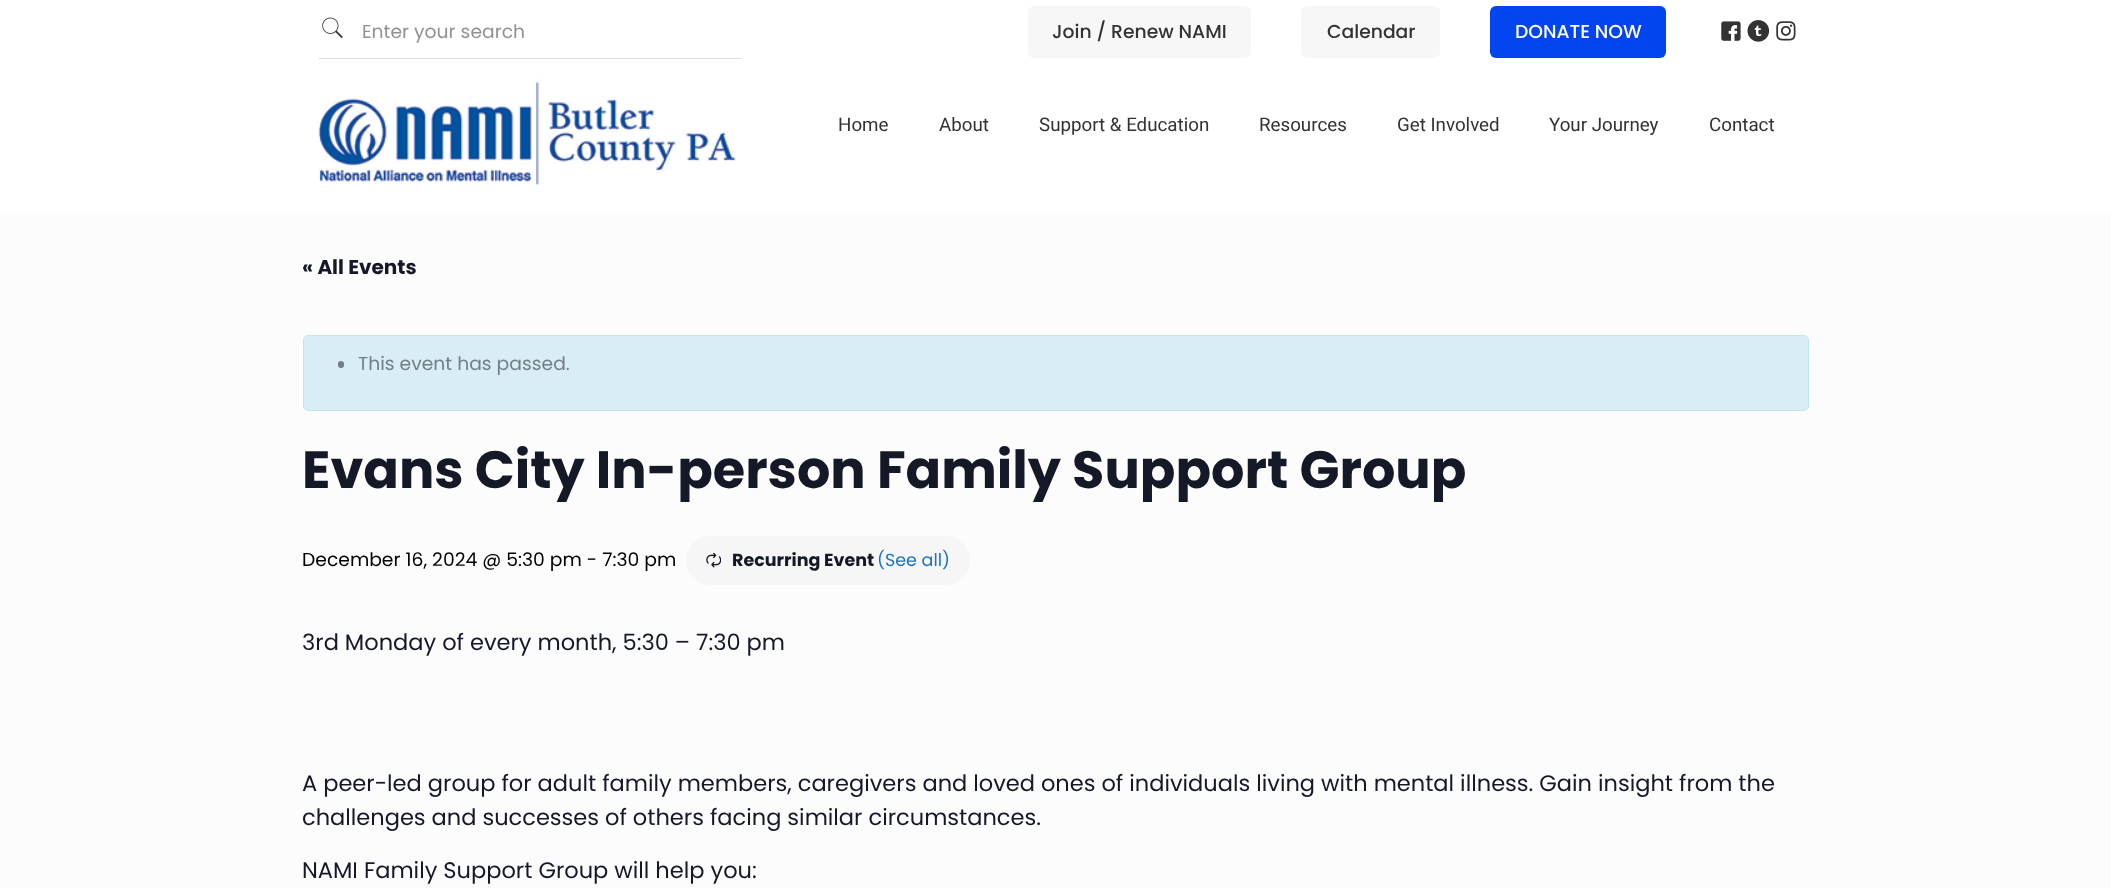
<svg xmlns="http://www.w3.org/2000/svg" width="2111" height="888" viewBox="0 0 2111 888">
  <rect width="100%" height="100%" fill="rgb(252,252,252)"/>
  <rect x="0" y="0" width="2111" height="213" fill="rgb(255,255,255)"/>
  <image x="322" y="17" width="21" height="22" href="pic1.png"/>
  <rect x="319" y="58" width="422" height="1" fill="rgb(221,221,221)"/>
  <text x="362" y="38" font-family="Poppins" font-size="18.75" fill="rgb(146,146,146)">Enter your search</text>
  <rect x="1028" y="6" width="223" height="52" rx="6" fill="rgb(247,247,247)"/>
  <text x="1052" y="38" font-family="Poppins" font-size="18.75" font-weight="500" fill="rgb(51,51,51)">Join / Renew NAMI</text>
  <rect x="1301" y="6" width="139" height="52" rx="6" fill="rgb(247,247,247)"/>
  <text x="1327" y="38" font-family="Poppins" font-size="18.75" font-weight="500" fill="rgb(51,51,51)">Calendar</text>
  <rect x="1490" y="6" width="176" height="52" rx="6" fill="rgb(2,68,240)"/>
  <text x="1515" y="38" font-family="Poppins" font-size="18.75" font-weight="500" fill="rgb(255,255,255)">DONATE NOW</text>
  <image x="1721" y="21" width="20" height="20" href="pic2.png"/>
  <image x="1747" y="20" width="23" height="22" href="pic3.png"/>
  <image x="1776" y="21" width="20" height="20" href="pic4.png"/>
  <image x="317" y="79" width="419" height="106" href="pic5.png"/>
  <g font-family="Roboto" font-size="18.75" fill="rgb(51,51,51)">
    <text x="838" y="131">Home</text>
    <text x="939" y="131">About</text>
    <text x="1039" y="131">Support &amp; Education</text>
    <text x="1259" y="131">Resources</text>
    <text x="1397" y="131">Get Involved</text>
    <text x="1549" y="131">Your Journey</text>
    <text x="1709" y="131">Contact</text>
  </g>
  <text x="302" y="274" font-family="Poppins" font-size="20" font-weight="bold" fill="rgb(20,24,39)">« All Events</text>
  <rect x="303.5" y="335.5" width="1505" height="75" rx="4.5" fill="rgb(217,237,247)" stroke="rgb(188,232,241)"/>
  <rect x="338" y="361" width="6" height="7" rx="3" fill="rgb(115,126,134)"/>
  <text x="358" y="370" font-family="Poppins" font-size="18.75" fill="rgb(115,126,134)">This event has passed.</text>
  <text x="302" y="488" font-family="Poppins" font-size="52.5" font-weight="bold" fill="rgb(20,24,39)">Evans City In-person Family Support Group</text>
  <text x="302" y="566" font-family="Poppins" font-size="18.75" fill="rgb(0,0,0)">December 16, 2024 @ 5:30 pm - 7:30 pm</text>
  <rect x="686" y="536" width="284" height="49" rx="24.5" fill="rgb(247,246,246)"/>
  <image x="706" y="553" width="15" height="15" href="pic6.png"/>
  <text x="732" y="566" font-family="Poppins" font-size="17.5" font-weight="bold" fill="rgb(20,24,39)">Recurring Event</text>
  <text x="877" y="566" font-family="Poppins" font-size="17.5" fill="rgb(30,115,190)">(See all)</text>
  <g font-family="Poppins" font-size="22.5" fill="rgb(20,24,39)">
    <text x="302" y="650">3rd Monday of every month, 5:30 – 7:30 pm</text>
    <text>
      <tspan x="302" y="791">A peer-led group for adult family members, caregivers and loved ones of individuals living with mental illness. Gain insight from the</tspan>
      <tspan x="302" y="825">challenges and successes of others facing similar circumstances.</tspan>
    </text>
    <text x="302" y="878">NAMI Family Support Group will help you:</text>
  </g>
</svg>
